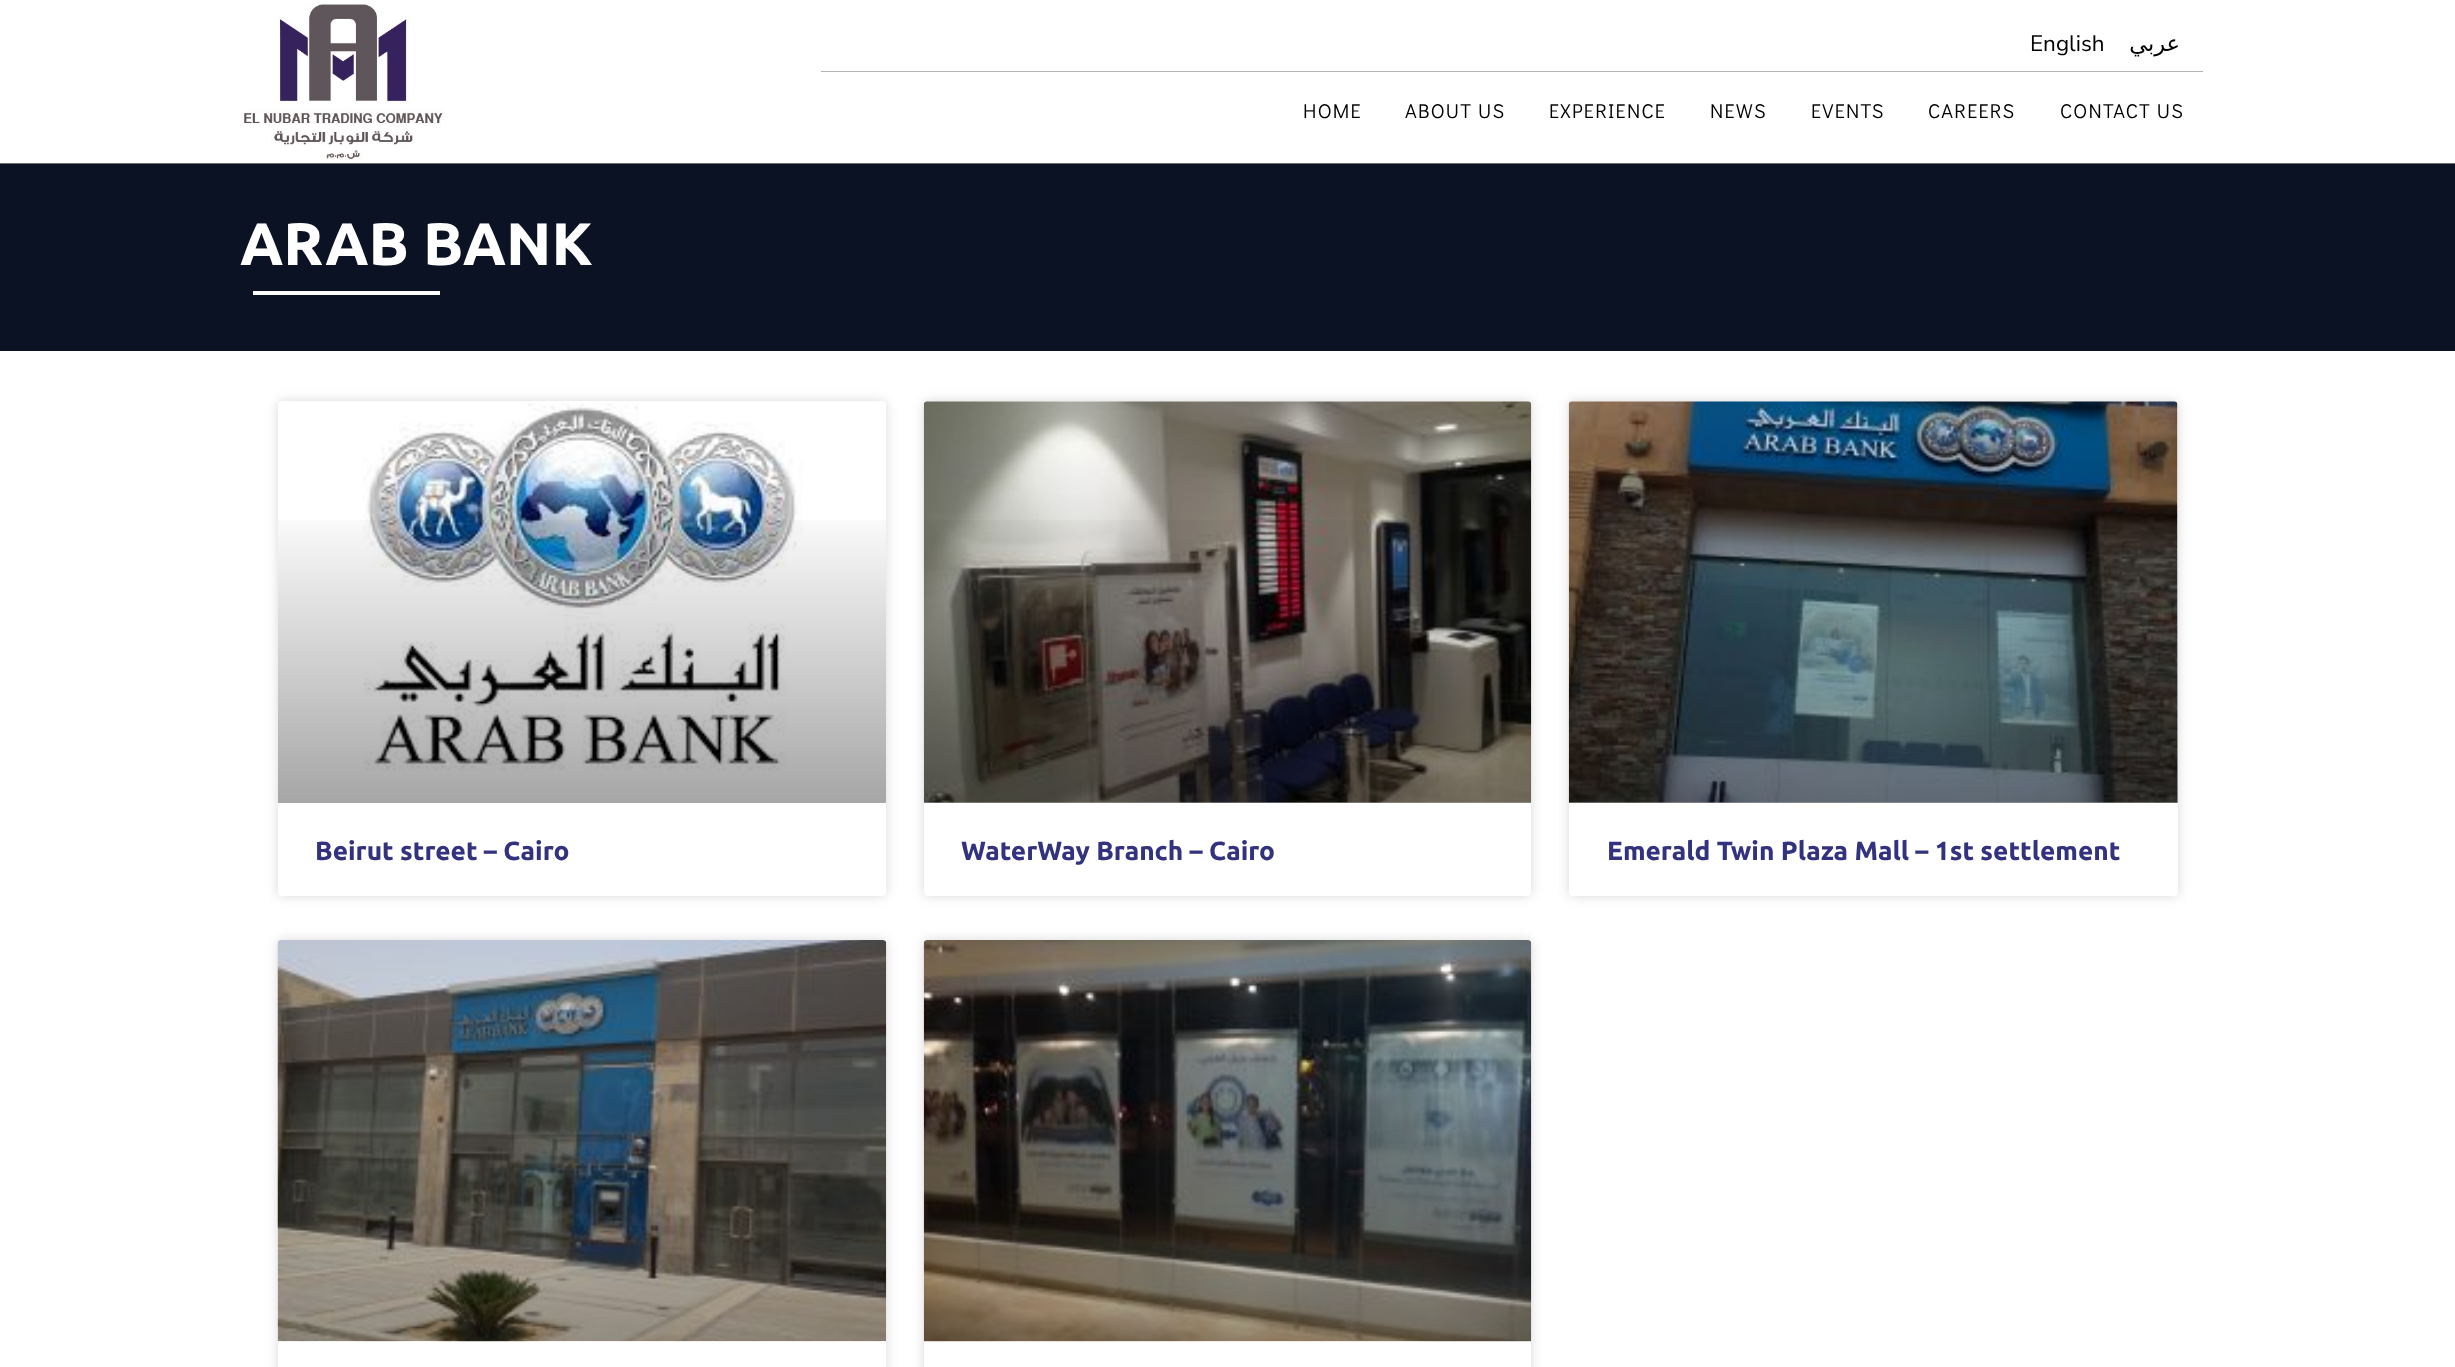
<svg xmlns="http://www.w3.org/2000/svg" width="2455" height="1367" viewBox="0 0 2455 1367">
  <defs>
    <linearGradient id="g1" gradientUnits="userSpaceOnUse" x1="582" y1="803" x2="582" y2="401"><stop offset="0" stop-color="rgb(0,0,0)" stop-opacity="0.35"/><stop offset="0.75" stop-color="rgb(0,0,0)" stop-opacity="0"/></linearGradient>
    <linearGradient id="g2" gradientUnits="userSpaceOnUse" x1="1228" y1="803" x2="1228" y2="401"><stop offset="0" stop-color="rgb(0,0,0)" stop-opacity="0.35"/><stop offset="0.75" stop-color="rgb(0,0,0)" stop-opacity="0"/></linearGradient>
    <linearGradient id="g3" gradientUnits="userSpaceOnUse" x1="1873" y1="803" x2="1873" y2="401"><stop offset="0" stop-color="rgb(0,0,0)" stop-opacity="0.35"/><stop offset="0.75" stop-color="rgb(0,0,0)" stop-opacity="0"/></linearGradient>
    <clipPath id="clip1"><path d="M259 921H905V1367H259ZM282 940H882C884 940 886 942 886 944V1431C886 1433 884 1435 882 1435H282C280 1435 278 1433 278 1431V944C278 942 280 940 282 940Z" clip-rule="evenodd"/></clipPath>
    <linearGradient id="g4" gradientUnits="userSpaceOnUse" x1="582" y1="1341" x2="582" y2="940"><stop offset="0" stop-color="rgb(0,0,0)" stop-opacity="0.35"/><stop offset="0.75" stop-color="rgb(0,0,0)" stop-opacity="0"/></linearGradient>
    <clipPath id="clip2"><path d="M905 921H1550V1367H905ZM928 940H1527C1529 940 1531 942 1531 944V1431C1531 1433 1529 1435 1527 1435H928C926 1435 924 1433 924 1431V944C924 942 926 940 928 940Z" clip-rule="evenodd"/></clipPath>
    <linearGradient id="g5" gradientUnits="userSpaceOnUse" x1="1228" y1="1341" x2="1228" y2="940"><stop offset="0" stop-color="rgb(0,0,0)" stop-opacity="0.35"/><stop offset="0.75" stop-color="rgb(0,0,0)" stop-opacity="0"/></linearGradient>
  </defs>
  <rect width="100%" height="100%" fill="rgb(255,255,255)"/>
  <rect x="0" y="163" width="2455" height="1" fill="rgb(109,110,113)"/>
  <image x="244" y="1" width="201" height="159" href="pic1.png"/>
  <rect x="821" y="71" width="1382" height="1" fill="rgb(180,180,180)"/>
  <text x="2030" y="51" font-family="Nunito Sans" font-size="22.5" fill="rgb(0,0,0)">English</text>
  <text x="2180" y="51" font-family="DejaVu Sans" font-size="22.5" direction="rtl" fill="rgb(0,0,0)">عربي</text>
  <g font-family="Didact Gothic" font-size="20" letter-spacing="1.25" fill="rgb(0,0,0)">
    <text x="1303" y="118">HOME</text>
    <text x="1405" y="118">ABOUT US</text>
    <text x="1549" y="118">EXPERIENCE</text>
    <text x="1710" y="118">NEWS</text>
    <text x="1811" y="118">EVENTS</text>
    <text x="1928" y="118">CAREERS</text>
    <text x="2060" y="118">CONTACT US</text>
  </g>
  <rect x="0" y="164" width="2455" height="187" fill="rgb(11,18,36)"/>
  <text x="240" y="265" font-family="Ubuntu" font-size="60" font-weight="bold" fill="rgb(255,255,255)">ARAB BANK</text>
  <rect x="253" y="291" width="187" height="4" fill="rgb(255,255,255)"/>
  <rect x="278" y="401" width="608" height="495" rx="4" fill="rgba(0,0,0,0.15)" filter="blur(6px)"/>
  <rect x="278" y="401" width="608" height="495" rx="4" fill="rgb(255,255,255)"/>
  <image x="363" y="403" width="440" height="368" href="pic2.png"/>
  <rect x="278" y="520" width="608" height="283" fill="url(#g1)"/>
  <text x="315" y="860" font-family="Ubuntu" font-size="26.25" font-weight="bold" fill="rgb(50,50,127)">Beirut street – Cairo</text>
  <rect x="924" y="401" width="607" height="495" rx="4" fill="rgba(0,0,0,0.15)" filter="blur(6px)"/>
  <rect x="924" y="401" width="607" height="495" rx="4" fill="rgb(255,255,255)"/>
  <image x="923" y="401" width="609" height="402" href="pic3.png"/>
  <rect x="924" y="520" width="607" height="283" fill="url(#g2)"/>
  <text x="961" y="860" font-family="Ubuntu" font-size="26.25" font-weight="bold" fill="rgb(50,50,127)">WaterWay Branch – Cairo</text>
  <rect x="1569" y="401" width="609" height="495" rx="4" fill="rgba(0,0,0,0.15)" filter="blur(6px)"/>
  <rect x="1569" y="401" width="609" height="495" rx="4" fill="rgb(255,255,255)"/>
  <image x="1568" y="401" width="610" height="402" href="pic4.png"/>
  <rect x="1569" y="520" width="609" height="283" fill="url(#g3)"/>
  <text x="1607" y="860" font-family="Ubuntu" font-size="26.25" font-weight="bold" fill="rgb(50,50,127)">Emerald Twin Plaza Mall – 1st settlement</text>
  <g clip-path="url(#clip1)">
    <rect x="278" y="940" width="608" height="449" rx="4" fill="rgba(0,0,0,0.15)" filter="blur(6px)"/>
  </g>
  <image x="277" y="940" width="610" height="402" href="pic5.png"/>
  <rect x="278" y="1059" width="608" height="282" fill="url(#g4)"/>
  <g clip-path="url(#clip2)">
    <rect x="924" y="940" width="607" height="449" rx="4" fill="rgba(0,0,0,0.15)" filter="blur(6px)"/>
  </g>
  <image x="923" y="940" width="609" height="402" href="pic6.png"/>
  <rect x="924" y="1059" width="607" height="282" fill="url(#g5)"/>
</svg>
